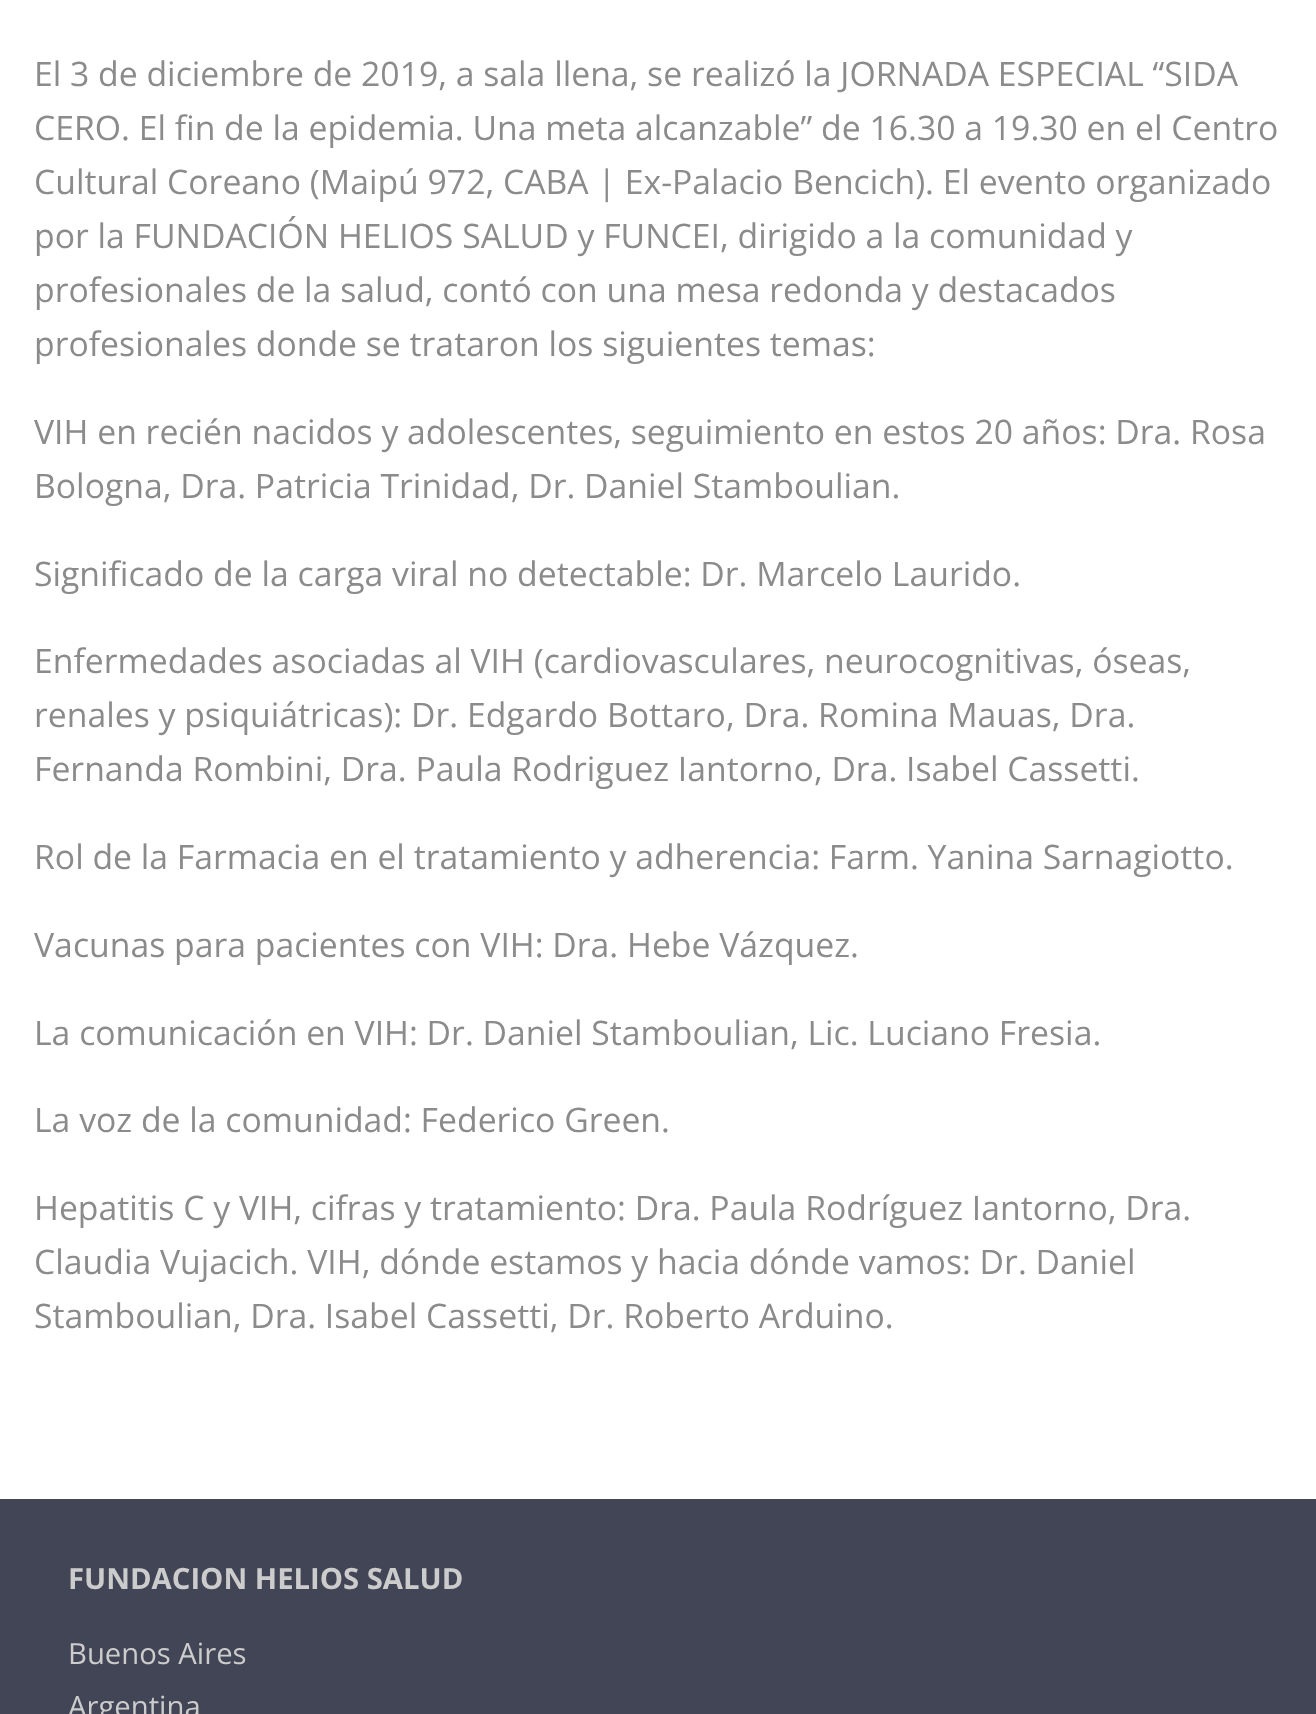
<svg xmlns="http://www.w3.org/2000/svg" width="1316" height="1714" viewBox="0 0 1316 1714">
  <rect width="100%" height="100%" fill="rgb(255,255,255)"/>
  <g font-family="Open Sans" font-size="33.75" fill="rgb(139,139,139)">
    <text>
      <tspan x="34" y="86">El 3 de diciembre de 2019, a sala llena, se realizó la JORNADA ESPECIAL “SIDA</tspan>
      <tspan x="34" y="140">CERO. El fin de la epidemia. Una meta alcanzable” de 16.30 a 19.30 en el Centro</tspan>
      <tspan x="34" y="194">Cultural Coreano (Maipú 972, CABA | Ex-Palacio Bencich). El evento organizado</tspan>
      <tspan x="34" y="248">por la FUNDACIÓN HELIOS SALUD y FUNCEI, dirigido a la comunidad y</tspan>
      <tspan x="34" y="302">profesionales de la salud, contó con una mesa redonda y destacados</tspan>
      <tspan x="34" y="356">profesionales donde se trataron los siguientes temas:</tspan>
    </text>
    <text>
      <tspan x="34" y="444">VIH en recién nacidos y adolescentes, seguimiento en estos 20 años: Dra. Rosa</tspan>
      <tspan x="34" y="498">Bologna, Dra. Patricia Trinidad, Dr. Daniel Stamboulian.</tspan>
    </text>
    <text x="34" y="586">Significado de la carga viral no detectable: Dr. Marcelo Laurido.</text>
    <text>
      <tspan x="34" y="673">Enfermedades asociadas al VIH (cardiovasculares, neurocognitivas, óseas,</tspan>
      <tspan x="34" y="727">renales y psiquiátricas): Dr. Edgardo Bottaro, Dra. Romina Mauas, Dra.</tspan>
      <tspan x="34" y="781">Fernanda Rombini, Dra. Paula Rodriguez Iantorno, Dra. Isabel Cassetti.</tspan>
    </text>
    <text x="34" y="869">Rol de la Farmacia en el tratamiento y adherencia: Farm. Yanina Sarnagiotto.</text>
    <text x="34" y="957">Vacunas para pacientes con VIH: Dra. Hebe Vázquez.</text>
    <text x="34" y="1045">La comunicación en VIH: Dr. Daniel Stamboulian, Lic. Luciano Fresia.</text>
    <text x="34" y="1132">La voz de la comunidad: Federico Green.</text>
    <text>
      <tspan x="34" y="1220">Hepatitis C y VIH, cifras y tratamiento: Dra. Paula Rodríguez Iantorno, Dra.</tspan>
      <tspan x="34" y="1274">Claudia Vujacich. VIH, dónde estamos y hacia dónde vamos: Dr. Daniel</tspan>
      <tspan x="34" y="1328">Stamboulian, Dra. Isabel Cassetti, Dr. Roberto Arduino.</tspan>
    </text>
  </g>
  <rect x="0" y="1499" width="1316" height="215" fill="rgb(66,69,85)"/>
  <text x="68" y="1589" font-family="Open Sans" font-size="29.25" font-weight="bold" fill="rgb(204,204,204)">FUNDACION HELIOS SALUD</text>
  <g font-family="Open Sans" font-size="29.25" fill="rgb(204,204,204)">
    <text>
      <tspan x="68" y="1664">Buenos Aires</tspan>
      <tspan x="68" y="1717">Argentina</tspan>
    </text>
  </g>
</svg>
